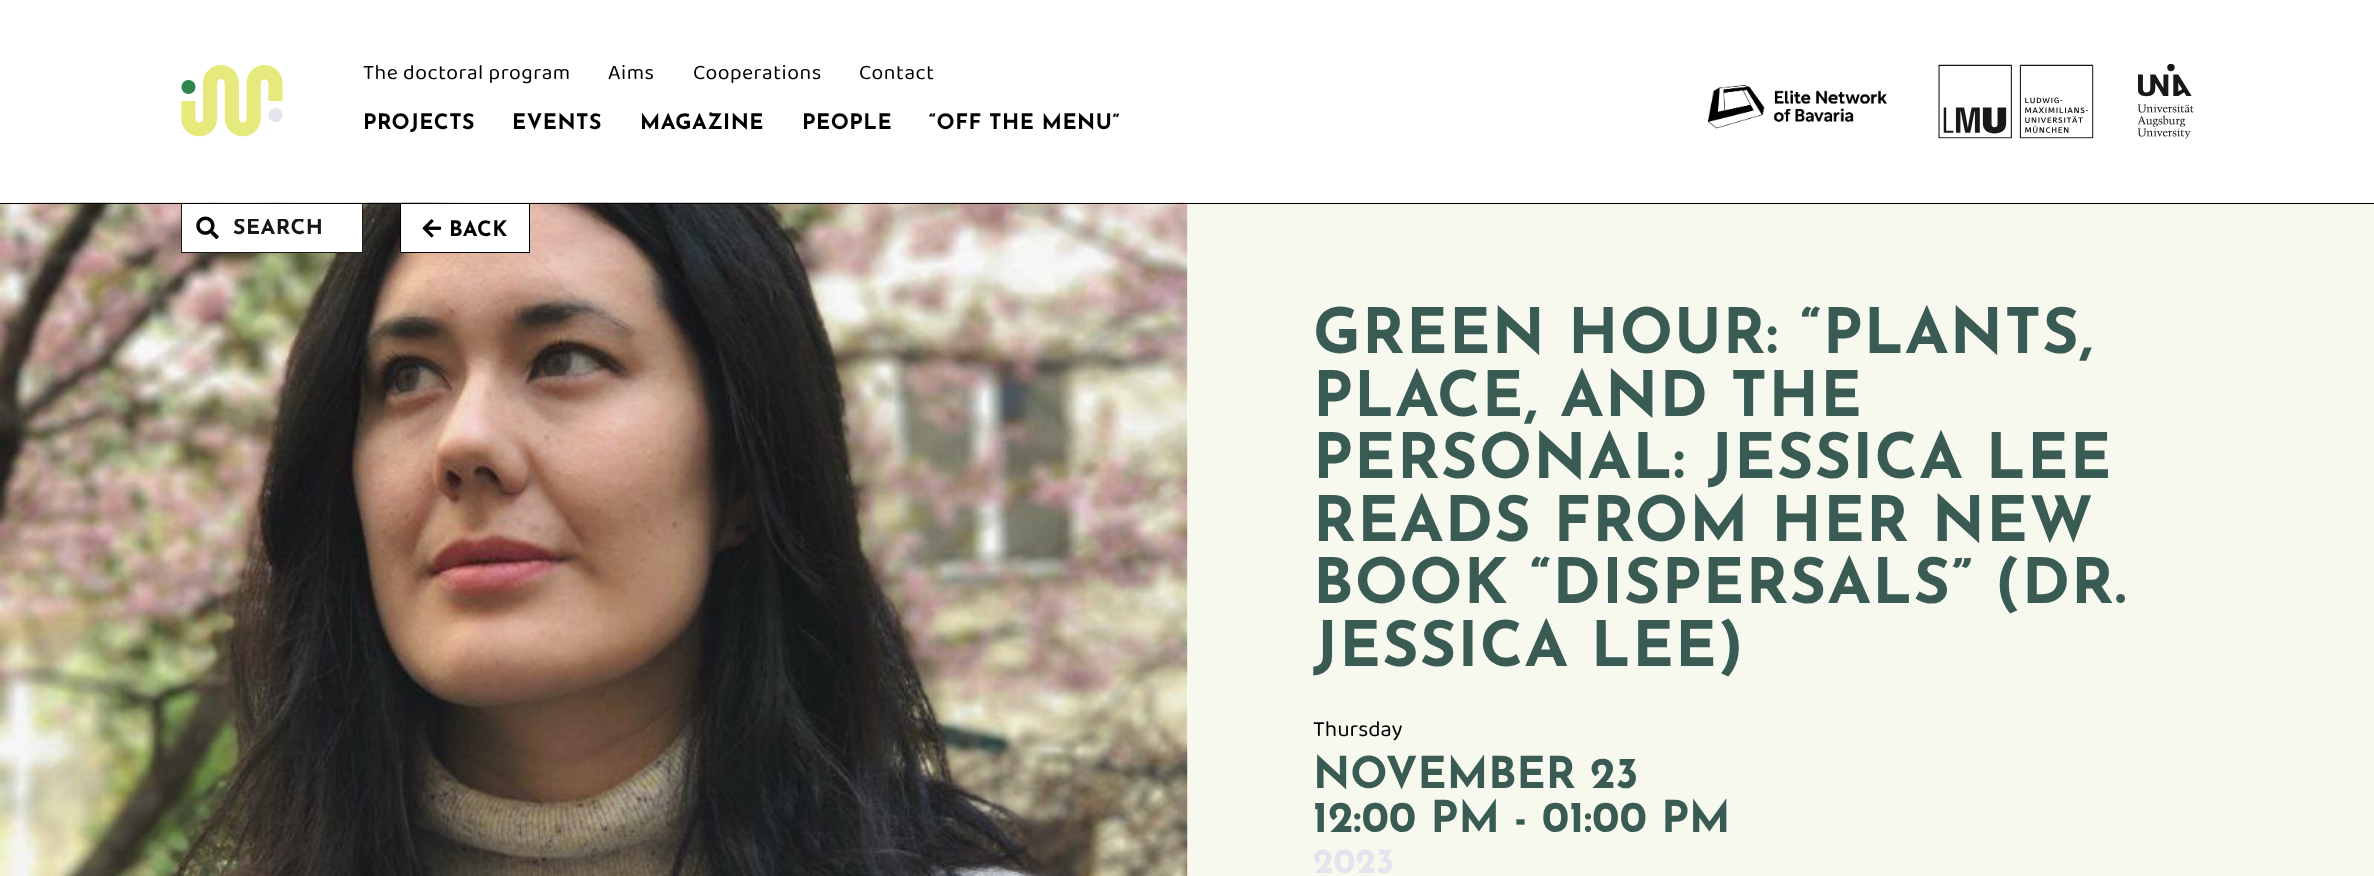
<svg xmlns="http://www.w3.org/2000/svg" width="2374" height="876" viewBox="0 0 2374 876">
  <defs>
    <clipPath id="clip1"><rect x="0" y="204" width="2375" height="49"/></clipPath>
    <clipPath id="clip2"><rect x="233" y="219" width="93" height="21"/></clipPath>
  </defs>
  <rect width="100%" height="100%" fill="rgb(255,255,255)"/>
  <image x="0" y="202" width="1188" height="674" href="pic7.png"/>
  <rect x="0" y="203" width="2374" height="1" fill="rgb(0,0,0)"/>
  <image x="181" y="65" width="102" height="72" href="pic1.png"/>
  <g font-family="'Baloo 2'" font-size="21.25" letter-spacing="0.5" fill="rgb(0,0,0)">
    <text x="363" y="79">The doctoral program</text>
    <text x="608" y="79">Aims</text>
    <text x="693" y="79">Cooperations</text>
    <text x="859" y="79">Contact</text>
  </g>
  <g font-family="Josefin Sans" font-size="21.25" font-weight="100" letter-spacing="0.5" fill="rgb(0,0,0)">
    <text x="363" y="129">PROJECTS</text>
    <text x="512" y="129">EVENTS</text>
    <text x="640" y="129">MAGAZINE</text>
    <text x="802" y="129">PEOPLE</text>
    <text x="929" y="129">“OFF THE MENU”</text>
  </g>
  <image x="1707" y="84" width="180" height="45" href="pic2.png"/>
  <image x="1938" y="64" width="156" height="75" href="pic3.png"/>
  <image x="2138" y="64" width="56" height="75" href="pic4.png"/>
  <rect x="182" y="204" width="180" height="48" fill="rgb(255,255,255)"/>
  <g clip-path="url(#clip1)">
    <rect x="181.5" y="203.5" width="181" height="49" fill="none" stroke="rgb(24,24,24)"/>
  </g>
  <image x="196" y="216" width="23" height="23" href="pic5.png"/>
  <g clip-path="url(#clip2)">
    <text x="233" y="234" font-family="Josefin Sans" font-size="21.25" font-weight="100" letter-spacing="0.5" fill="rgb(24,24,24)">SEARCH</text>
  </g>
  <rect x="401" y="204" width="128" height="48" fill="rgb(255,255,255)"/>
  <g clip-path="url(#clip1)">
    <rect x="400.5" y="203.5" width="129" height="49" fill="none" stroke="rgb(0,0,0)"/>
  </g>
  <image x="422" y="219" width="20" height="19" href="pic6.png"/>
  <text x="449" y="236" font-family="Josefin Sans" font-size="21.25" font-weight="100" letter-spacing="0.5" fill="rgb(0,0,0)">BACK</text>
  <rect x="1188" y="204" width="1186" height="672" fill="rgb(247,248,238)"/>
  <g font-family="Josefin Sans" font-size="62.5" font-weight="100" letter-spacing="1.25" fill="rgb(57,91,83)">
    <text>
      <tspan x="1313" y="353">GREEN HOUR: “PLANTS,</tspan>
      <tspan x="1313" y="416">PLACE, AND THE</tspan>
      <tspan x="1313" y="478">PERSONAL: JESSICA LEE</tspan>
      <tspan x="1313" y="541">READS FROM HER NEW</tspan>
      <tspan x="1313" y="603">BOOK “DISPERSALS” (DR.</tspan>
      <tspan x="1313" y="666">JESSICA LEE)</tspan>
    </text>
  </g>
  <text x="1313" y="736" font-family="'Baloo 2'" font-size="22.5" fill="rgb(0,0,0)">Thursday</text>
  <g font-family="Josefin Sans" font-size="43.75" font-weight="100" fill="rgb(57,91,83)">
    <text>
      <tspan x="1313" y="788">NOVEMBER 23</tspan>
      <tspan x="1313" y="832">12:00 PM - 01:00 PM</tspan>
    </text>
  </g>
  <text x="1313" y="873" font-family="Josefin Sans" font-size="35" font-weight="100" fill="rgb(227,228,238)">2023</text>
</svg>
